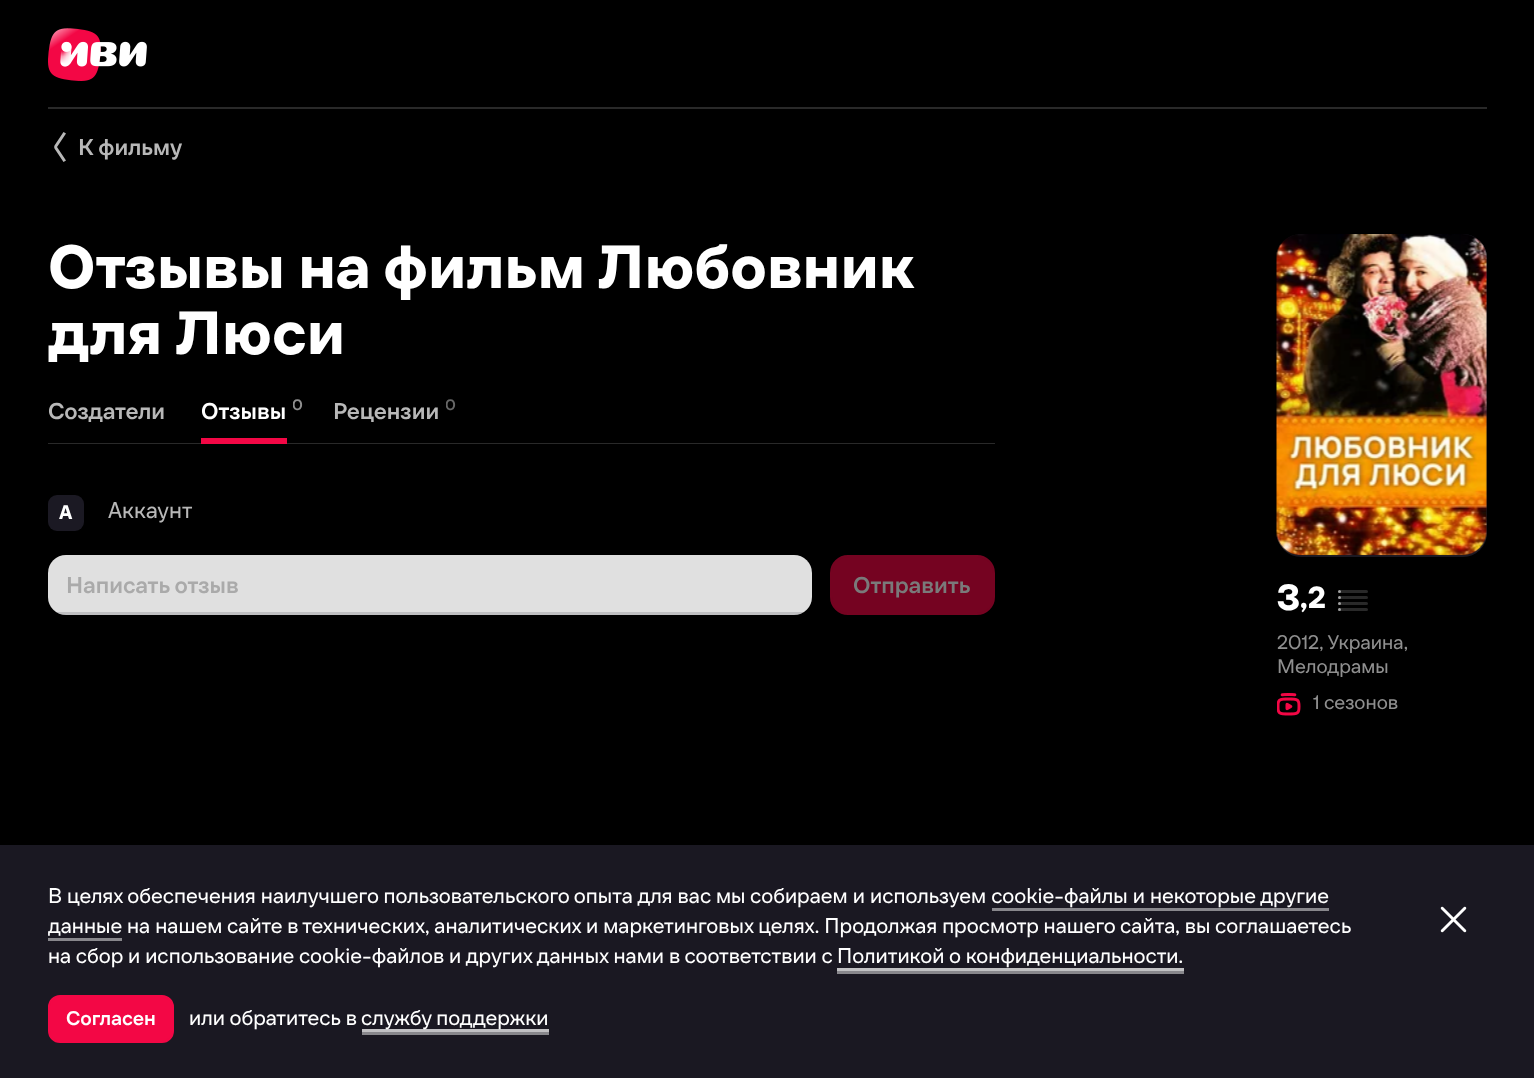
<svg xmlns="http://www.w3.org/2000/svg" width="1534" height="1078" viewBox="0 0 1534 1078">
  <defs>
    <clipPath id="clip1"><rect x="293" y="396" width="10" height="18"/></clipPath>
    <clipPath id="clip2"><rect x="446" y="396" width="10" height="18"/></clipPath>
    <clipPath id="clip3"><rect x="48" y="555" width="764" height="60" rx="18"/></clipPath>
  </defs>
  <rect width="100%" height="100%" fill="rgb(0,0,0)"/>
  <image x="48" y="28" width="99" height="53" href="pic1.png"/>
  <rect x="48" y="107" width="1439" height="2" fill="rgb(41,41,41)"/>
  <path d="M66 160.5L63.5 162L54.5 148.5C54 147.5 54 146.5 54.5 145.5L63.5 132L66 133.5L57 147Z" fill="rgb(184,184,184)"/>
  <text x="78" y="155" font-family="'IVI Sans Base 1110'" font-size="22.5" font-weight="500" fill="rgb(184,184,184)">К фильму</text>
  <g font-family="'IVI Sans Base 1110'" font-size="60" font-weight="bold" fill="rgb(255,255,255)">
    <text>
      <tspan x="48" y="288" word-spacing="-0.5">Отзывы на фильм Любовник</tspan>
      <tspan x="48" y="354">для Люси</tspan>
    </text>
  </g>
  <text x="48" y="419" font-family="'IVI Sans Base 1110'" font-size="22.5" font-weight="500" fill="rgb(184,184,184)">Создатели</text>
  <text x="201" y="419" font-family="'IVI Sans Base 1110'" font-size="22.5" font-weight="500" fill="rgb(255,255,255)">Отзывы</text>
  <g clip-path="url(#clip1)">
    <text x="292" y="410" font-family="'IVI Sans Base 1110'" font-size="15" font-weight="500" fill="rgb(143,143,143)">0</text>
  </g>
  <rect x="48" y="443" width="947" height="1" fill="rgb(41,41,41)"/>
  <rect x="201" y="438" width="86" height="6" fill="rgb(243,7,69)"/>
  <text x="333" y="419" font-family="'IVI Sans Base 1110'" font-size="22.5" font-weight="500" fill="rgb(184,184,184)">Рецензии</text>
  <g clip-path="url(#clip2)">
    <text x="445" y="410" font-family="'IVI Sans Base 1110'" font-size="15" font-weight="500" fill="rgb(103,103,103)">0</text>
  </g>
  <rect x="48" y="495" width="36" height="36" rx="9" fill="rgb(27,25,35)"/>
  <text x="59" y="519" font-family="'IVI Sans Base 1110'" font-size="19.5" font-weight="bold" fill="rgb(255,255,255)">А</text>
  <text x="108" y="518" font-family="'IVI Sans Base 1110'" font-size="22.5" fill="rgb(184,184,184)">Аккаунт</text>
  <rect x="48" y="555" width="764" height="60" rx="18" fill="rgb(224,224,224)"/>
  <text x="66" y="593" font-family="'IVI Sans Base 1110'" font-size="22.5" font-weight="500" fill="rgb(170,170,170)">Написать отзыв</text>
  <g clip-path="url(#clip3)">
    <rect x="48" y="612" width="764" height="3" fill="rgba(27,25,35,0.16)"/>
  </g>
  <rect x="831" y="556" width="163" height="58" rx="17" fill="rgb(117,3,33)" stroke="rgb(117,3,33)" stroke-width="2"/>
  <text x="853" y="593" font-family="'IVI Sans Base 1110'" font-size="22.5" font-weight="500" fill="rgb(122,122,122)">Отправить</text>
  <rect x="1277" y="234" width="210" height="323" rx="24" fill="rgb(27,25,35)"/>
  <image x="1276" y="234" width="211" height="322" href="pic2.png"/>
  <text x="1277" y="610" font-family="'IVI Sans Base 1110'" font-size="36" font-weight="bold" fill="rgb(255,255,255)">3</text>
  <g font-family="'IVI Sans Base 1110'" font-size="30" font-weight="bold" fill="rgb(255,255,255)">
    <text x="1300" y="608">,</text>
    <text x="1308" y="608">2</text>
  </g>
  <rect x="1338" y="590" width="30" height="3" rx="1.5" fill="rgb(41,41,41)"/>
  <circle cx="1339.5" cy="591.5" r="1.5" fill="rgba(255,255,255,0.56)"/>
  <rect x="1338" y="596" width="30" height="3" rx="1.5" fill="rgb(41,41,41)"/>
  <circle cx="1339.5" cy="597.5" r="1.5" fill="rgba(255,255,255,0.56)"/>
  <rect x="1338" y="602" width="30" height="3" rx="1.5" fill="rgb(41,41,41)"/>
  <circle cx="1339.5" cy="603.5" r="1.5" fill="rgba(255,255,255,0.56)"/>
  <rect x="1338" y="608" width="30" height="3" rx="1.5" fill="rgb(41,41,41)"/>
  <circle cx="1339.5" cy="609.5" r="1.5" fill="rgba(255,255,255,0.56)"/>
  <g font-family="'IVI Sans Base 1110'" font-size="19.5" fill="rgb(143,143,143)">
    <text>
      <tspan x="1277" y="649">2012, Украина,</tspan>
      <tspan x="1277" y="673">Мелодрамы</tspan>
    </text>
  </g>
  <image x="1277" y="693" width="24" height="23" href="pic3.png"/>
  <text x="1313" y="709" font-family="'IVI Sans Base 1110'" font-size="19.5" fill="rgb(143,143,143)">1 сезонов</text>
  <rect x="0" y="845" width="1534" height="233" fill="rgb(26,24,34)"/>
  <g font-family="'IVI Sans Base 1110'" font-size="21" fill="rgb(255,255,255)">
    <text>
      <tspan x="48" y="903">В целях обеспечения наилучшего пользовательского опыта для вас мы собираем и используем cookie-файлы и некоторые другие</tspan>
      <tspan x="48" y="933">данные</tspan>
    </text>
  </g>
  <rect x="992" y="908" width="337" height="3" fill="rgb(136,135,140)"/>
  <path d="M48 938V941H122V917V938Z" fill="rgb(136,135,140)"/>
  <g font-family="'IVI Sans Base 1110'" font-size="21" fill="rgb(255,255,255)">
    <text x="127" y="933">на нашем сайте в технических, аналитических и маркетинговых целях. Продолжая просмотр нашего сайта, вы соглашаетесь</text>
    <text x="48" y="963">на сбор и использование cookie-файлов и других данных нами в соответствии с</text>
  </g>
  <rect x="837" y="971" width="347" height="3" fill="rgb(136,135,140)"/>
  <text x="837" y="963" font-family="'IVI Sans Base 1110'" font-size="21" fill="rgb(255,255,255)">Политикой о конфиденциальности.</text>
  <rect x="837" y="968" width="347" height="3" fill="rgb(193,193,195)"/>
  <image x="1440" y="906" width="27" height="27" href="pic4.png"/>
  <rect x="49" y="996" width="124" height="46" rx="11" fill="rgb(243,7,69)" stroke="rgb(243,7,69)" stroke-width="2"/>
  <text x="66" y="1025" font-family="'IVI Sans Base 1110'" font-size="19.5" font-weight="500" fill="rgb(255,255,255)">Согласен</text>
  <text x="189" y="1025" font-family="'IVI Sans Base 1110'" font-size="21" fill="rgb(255,255,255)">или обратитесь в</text>
  <rect x="362" y="1029" width="187" height="6" fill="rgb(136,135,140)"/>
  <text x="361" y="1025" font-family="'IVI Sans Base 1110'" font-size="21" fill="rgb(255,255,255)">службу поддержки</text>
  <rect x="362" y="1029" width="187" height="3" fill="rgba(255,255,255,0.48)"/>
</svg>
